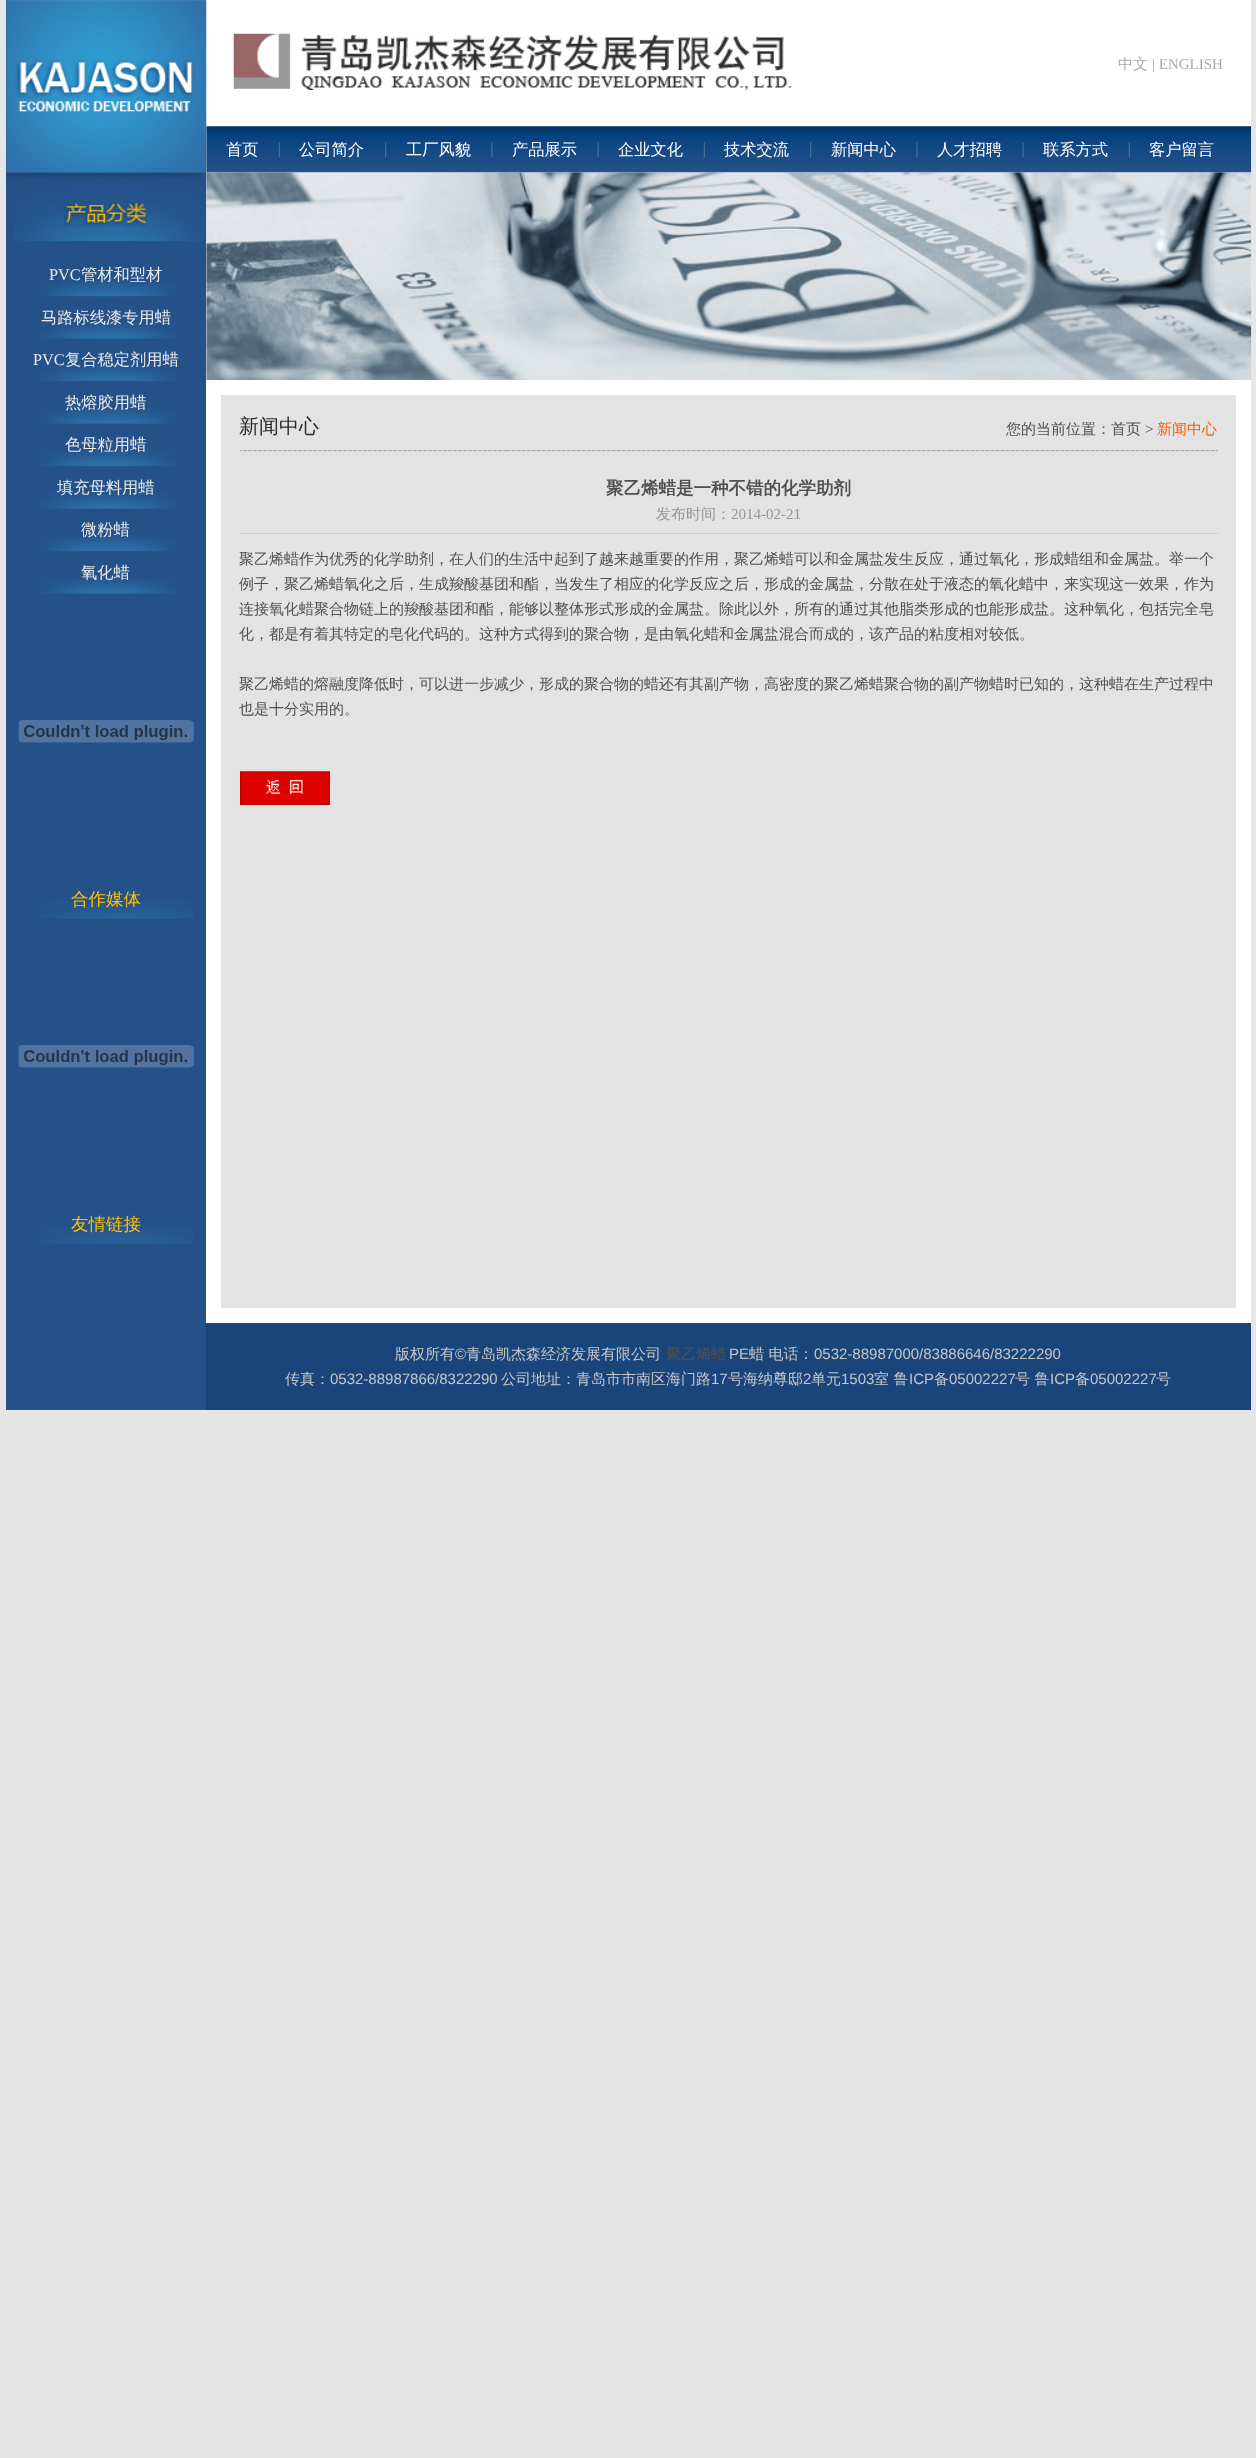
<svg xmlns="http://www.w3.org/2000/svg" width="1256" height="2458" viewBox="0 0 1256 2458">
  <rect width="100%" height="100%" fill="rgb(230,230,230)"/>
  <rect x="206" y="0" width="1045" height="1323" fill="rgb(255,255,255)"/>
  <rect x="6" y="0" width="200" height="1410" fill="rgb(37,81,137)"/>
  <image x="6" y="0" width="201" height="183" href="pic1.png"/>
  <image x="14" y="182" width="193" height="60" href="pic2.png"/>
  <image x="64" y="201" width="83" height="26" href="pic3.png"/>
  <image x="39" y="280" width="138" height="17" href="pic4.png"/>
  <text x="49" y="280" font-family="Liberation Serif" font-size="16.25" fill="rgb(234,234,234)">PVC</text>
  <text x="81" y="280" font-family="WenQuanYi Zen Hei" font-size="16.25" font-weight="500" fill="rgb(234,234,234)">管材和型材</text>
  <image x="39" y="322" width="138" height="17" href="pic5.png"/>
  <text x="41" y="323" font-family="WenQuanYi Zen Hei" font-size="16.25" font-weight="500" fill="rgb(234,234,234)">马路标线漆专用蜡</text>
  <image x="39" y="365" width="138" height="17" href="pic4.png"/>
  <text x="33" y="365" font-family="Liberation Serif" font-size="16.25" fill="rgb(234,234,234)">PVC</text>
  <text x="65" y="365" font-family="WenQuanYi Zen Hei" font-size="16.25" font-weight="500" fill="rgb(234,234,234)">复合稳定剂用蜡</text>
  <image x="39" y="407" width="138" height="17" href="pic5.png"/>
  <text x="65" y="408" font-family="WenQuanYi Zen Hei" font-size="16.25" font-weight="500" fill="rgb(234,234,234)">热熔胶用蜡</text>
  <image x="39" y="450" width="138" height="17" href="pic4.png"/>
  <text x="65" y="450" font-family="WenQuanYi Zen Hei" font-size="16.25" font-weight="500" fill="rgb(234,234,234)">色母粒用蜡</text>
  <image x="39" y="492" width="138" height="17" href="pic5.png"/>
  <text x="57" y="493" font-family="WenQuanYi Zen Hei" font-size="16.25" font-weight="500" fill="rgb(234,234,234)">填充母料用蜡</text>
  <image x="39" y="535" width="138" height="17" href="pic4.png"/>
  <text x="81" y="535" font-family="WenQuanYi Zen Hei" font-size="16.25" font-weight="500" fill="rgb(234,234,234)">微粉蜡</text>
  <image x="39" y="577" width="138" height="17" href="pic6.png"/>
  <text x="81" y="578" font-family="WenQuanYi Zen Hei" font-size="16.25" font-weight="500" fill="rgb(234,234,234)">氧化蜡</text>
  <image x="18" y="720" width="176" height="23" href="pic7.png"/>
  <image x="39" y="901" width="154" height="18" href="pic8.png"/>
  <text x="71" y="905" font-family="WenQuanYi Zen Hei" font-size="17.5" font-weight="500" fill="rgb(255,192,1)">合作媒体</text>
  <image x="18" y="1045" width="176" height="23" href="pic7.png"/>
  <image x="39" y="1226" width="154" height="18" href="pic8.png"/>
  <text x="71" y="1230" font-family="WenQuanYi Zen Hei" font-size="17.5" font-weight="500" fill="rgb(255,192,1)">友情链接</text>
  <image x="233" y="33" width="559" height="57" href="pic9.png"/>
  <text x="1118" y="69" font-family="WenQuanYi Zen Hei" font-size="15" font-weight="500" fill="rgb(170,170,170)">中文</text>
  <text x="1152" y="69" font-family="Liberation Serif" font-size="15" fill="rgb(170,170,170)">| ENGLISH</text>
  <image x="206" y="126" width="1046" height="47" href="pic10.png"/>
  <image x="278" y="142" width="2" height="16" href="pic11.png"/>
  <text x="226" y="155" font-family="WenQuanYi Zen Hei" font-size="16.25" font-weight="500" fill="rgb(255,255,255)">首页</text>
  <image x="385" y="142" width="2" height="16" href="pic12.png"/>
  <text x="299" y="155" font-family="WenQuanYi Zen Hei" font-size="16.25" font-weight="500" fill="rgb(255,255,255)">公司简介</text>
  <image x="491" y="142" width="2" height="16" href="pic13.png"/>
  <text x="406" y="155" font-family="WenQuanYi Zen Hei" font-size="16.25" font-weight="500" fill="rgb(255,255,255)">工厂风貌</text>
  <image x="597" y="142" width="2" height="16" href="pic14.png"/>
  <text x="512" y="155" font-family="WenQuanYi Zen Hei" font-size="16.25" font-weight="500" fill="rgb(255,255,255)">产品展示</text>
  <image x="703" y="142" width="2" height="16" href="pic11.png"/>
  <text x="618" y="155" font-family="WenQuanYi Zen Hei" font-size="16.25" font-weight="500" fill="rgb(255,255,255)">企业文化</text>
  <image x="810" y="142" width="2" height="16" href="pic15.png"/>
  <text x="724" y="155" font-family="WenQuanYi Zen Hei" font-size="16.25" font-weight="500" fill="rgb(255,255,255)">技术交流</text>
  <image x="916" y="142" width="2" height="16" href="pic16.png"/>
  <text x="831" y="155" font-family="WenQuanYi Zen Hei" font-size="16.25" font-weight="500" fill="rgb(255,255,255)">新闻中心</text>
  <image x="1022" y="142" width="2" height="16" href="pic14.png"/>
  <text x="937" y="155" font-family="WenQuanYi Zen Hei" font-size="16.25" font-weight="500" fill="rgb(255,255,255)">人才招聘</text>
  <image x="1128" y="142" width="2" height="16" href="pic11.png"/>
  <g font-family="WenQuanYi Zen Hei" font-size="16.25" font-weight="500" fill="rgb(255,255,255)">
    <text x="1043" y="155">联系方式</text>
    <text x="1149" y="155">客户留言</text>
  </g>
  <image x="206" y="172" width="1046" height="208" href="pic17.png"/>
  <rect x="221" y="395" width="1015" height="913" fill="rgb(227,227,227)"/>
  <image x="240" y="450" width="978" height="2" href="pic18.png"/>
  <text x="239" y="433" font-family="WenQuanYi Zen Hei" font-size="20" font-weight="500" fill="rgb(42,42,42)">新闻中心</text>
  <text x="1006" y="434" font-family="WenQuanYi Zen Hei" font-size="15" font-weight="500" fill="rgb(80,80,80)">您的当前位置：首页</text>
  <text x="1145" y="434" font-family="Liberation Serif" font-size="15" fill="rgb(80,80,80)">&gt;</text>
  <text x="1157" y="434" font-family="WenQuanYi Zen Hei" font-size="15" font-weight="500" fill="rgb(255,90,0)">新闻中心</text>
  <rect x="240" y="533" width="978" height="1" fill="rgb(208,208,208)"/>
  <text x="606" y="494" font-family="WenQuanYi Zen Hei" font-size="17.5" font-weight="bold" fill="rgb(80,80,80)">聚乙烯蜡是一种不错的化学助剂</text>
  <text x="656" y="519" font-family="WenQuanYi Zen Hei" font-size="15" font-weight="500" fill="rgb(151,151,151)">发布时间：</text>
  <text x="731" y="519" font-family="Liberation Serif" font-size="15" fill="rgb(151,151,151)">2014-02-21</text>
  <g font-family="WenQuanYi Zen Hei" font-size="15" font-weight="500" fill="rgb(80,80,80)">
    <text>
      <tspan x="239" y="564">聚乙烯蜡作为优秀的化学助剂，在人们的生活中起到了越来越重要的作用，聚乙烯蜡可以和金属盐发生反应，通过氧化，形成蜡组和金属盐。举一个</tspan>
      <tspan x="239" y="589">例子，聚乙烯蜡氧化之后，生成羧酸基团和酯，当发生了相应的化学反应之后，形成的金属盐，分散在处于液态的氧化蜡中，来实现这一效果，作为</tspan>
      <tspan x="239" y="614">连接氧化蜡聚合物链上的羧酸基团和酯，能够以整体形式形成的金属盐。除此以外，所有的通过其他脂类形成的也能形成盐。这种氧化，包括完全皂</tspan>
      <tspan x="239" y="639">化，都是有着其特定的皂化代码的。这种方式得到的聚合物，是由氧化蜡和金属盐混合而成的，该产品的粘度相对较低。</tspan>
    </text>
    <text>
      <tspan x="239" y="689">聚乙烯蜡的熔融度降低时，可以进一步减少，形成的聚合物的蜡还有其副产物，高密度的聚乙烯蜡聚合物的副产物蜡时已知的，这种蜡在生产过程中</tspan>
      <tspan x="239" y="714">也是十分实用的。</tspan>
    </text>
  </g>
  <image x="240" y="771" width="90" height="34" href="pic19.png"/>
  <rect x="206" y="1323" width="1045" height="87" fill="rgb(26,69,123)"/>
  <text x="395" y="1359" font-family="WenQuanYi Zen Hei" font-size="15" font-weight="500" fill="rgb(199,199,199)">版权所有</text>
  <text x="455" y="1359" font-family="Liberation Sans" font-size="15" fill="rgb(199,199,199)">©</text>
  <text x="466" y="1359" font-family="WenQuanYi Zen Hei" font-size="15" font-weight="500" fill="rgb(199,199,199)">青岛凯杰森经济发展有限公司</text>
  <text x="666" y="1359" font-family="WenQuanYi Zen Hei" font-size="15" font-weight="500" fill="rgb(80,80,80)">聚乙烯蜡</text>
  <text x="729" y="1359" font-family="Liberation Sans" font-size="15" fill="rgb(199,199,199)">PE</text>
  <text x="749" y="1359" font-family="WenQuanYi Zen Hei" font-size="15" font-weight="500" fill="rgb(199,199,199)">蜡 电话：</text>
  <text x="814" y="1359" font-family="Liberation Sans" font-size="15" fill="rgb(199,199,199)">0532-88987000/83886646/83222290</text>
  <text x="285" y="1384" font-family="WenQuanYi Zen Hei" font-size="15" font-weight="500" fill="rgb(199,199,199)">传真：</text>
  <text x="330" y="1384" font-family="Liberation Sans" font-size="15" fill="rgb(199,199,199)">0532-88987866/8322290</text>
  <text x="501" y="1384" font-family="WenQuanYi Zen Hei" font-size="15" font-weight="500" fill="rgb(199,199,199)">公司地址：青岛市市南区海门路</text>
  <text x="711" y="1384" font-family="Liberation Sans" font-size="15" fill="rgb(199,199,199)">17</text>
  <text x="728" y="1384" font-family="WenQuanYi Zen Hei" font-size="15" font-weight="500" fill="rgb(199,199,199)">号海纳尊邸</text>
  <text x="803" y="1384" font-family="Liberation Sans" font-size="15" fill="rgb(199,199,199)">2</text>
  <text x="811" y="1384" font-family="WenQuanYi Zen Hei" font-size="15" font-weight="500" fill="rgb(199,199,199)">单元</text>
  <text x="841" y="1384" font-family="Liberation Sans" font-size="15" fill="rgb(199,199,199)">1503</text>
  <text x="874" y="1384" font-family="WenQuanYi Zen Hei" font-size="15" font-weight="500" fill="rgb(199,199,199)">室 鲁</text>
  <text x="909" y="1384" font-family="Liberation Sans" font-size="15" fill="rgb(199,199,199)">ICP</text>
  <text x="934" y="1384" font-family="WenQuanYi Zen Hei" font-size="15" font-weight="500" fill="rgb(199,199,199)">备</text>
  <text x="949" y="1384" font-family="Liberation Sans" font-size="15" fill="rgb(199,199,199)">05002227</text>
  <text x="1015" y="1384" font-family="WenQuanYi Zen Hei" font-size="15" font-weight="500" fill="rgb(199,199,199)">号 鲁</text>
  <text x="1050" y="1384" font-family="Liberation Sans" font-size="15" fill="rgb(199,199,199)">ICP</text>
  <text x="1075" y="1384" font-family="WenQuanYi Zen Hei" font-size="15" font-weight="500" fill="rgb(199,199,199)">备</text>
  <text x="1090" y="1384" font-family="Liberation Sans" font-size="15" fill="rgb(199,199,199)">05002227</text>
  <text x="1156" y="1384" font-family="WenQuanYi Zen Hei" font-size="15" font-weight="500" fill="rgb(199,199,199)">号</text>
</svg>
